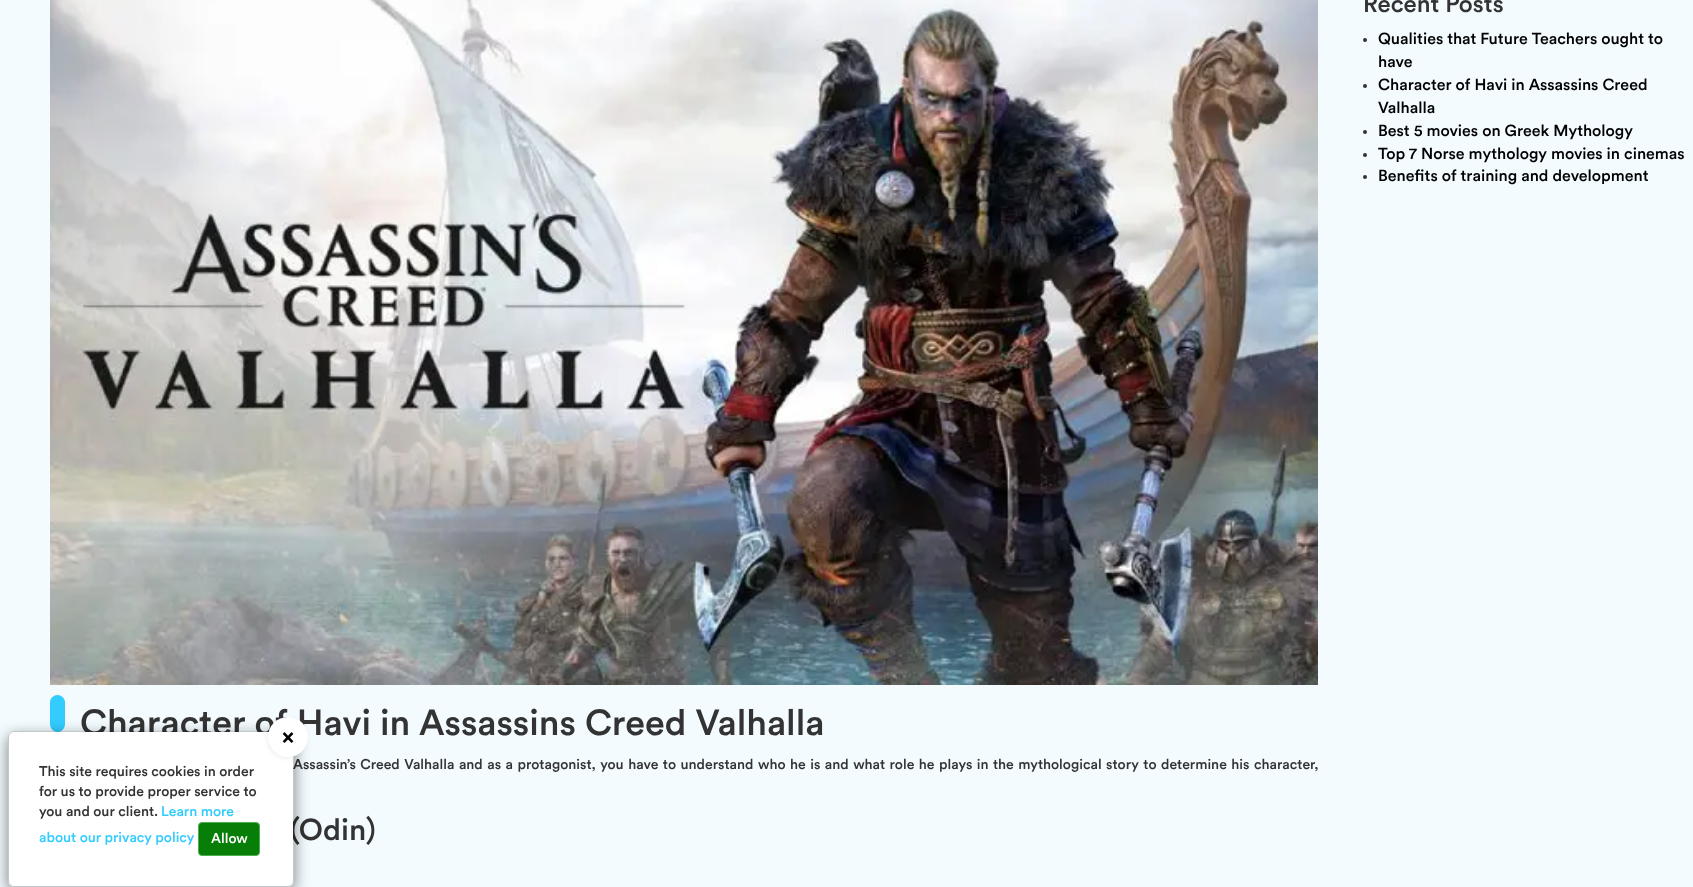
<svg xmlns="http://www.w3.org/2000/svg" width="1693" height="887" viewBox="0 0 1693 887">
  <defs>
    <clipPath id="clip1"><path d="M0 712H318V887H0ZM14 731H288C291.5 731 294 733.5 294 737V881C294 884.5 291.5 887 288 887H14C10.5 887 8 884.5 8 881V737C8 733.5 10.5 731 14 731Z" clip-rule="evenodd"/></clipPath>
  </defs>
  <rect width="100%" height="100%" fill="rgb(243,251,255)"/>
  <text x="1363" y="12" font-family="Circular" font-size="24" font-weight="500" fill="rgb(51,51,51)">Recent Posts</text>
  <circle cx="1365" cy="40" r="2" fill="rgb(51,51,51)"/>
  <g font-family="Circular" font-size="16" font-weight="500" fill="rgb(0,0,0)">
    <text>
      <tspan x="1378" y="44">Qualities that Future Teachers ought to</tspan>
      <tspan x="1378" y="67">have</tspan>
    </text>
  </g>
  <circle cx="1365" cy="86" r="2" fill="rgb(51,51,51)"/>
  <g font-family="Circular" font-size="16" font-weight="500" fill="rgb(0,0,0)">
    <text>
      <tspan x="1378" y="90">Character of Havi in Assassins Creed</tspan>
      <tspan x="1378" y="113">Valhalla</tspan>
    </text>
  </g>
  <circle cx="1365" cy="132" r="2" fill="rgb(51,51,51)"/>
  <text x="1378" y="136" font-family="Circular" font-size="16" font-weight="500" fill="rgb(0,0,0)">Best 5 movies on Greek Mythology</text>
  <circle cx="1365" cy="155" r="2" fill="rgb(51,51,51)"/>
  <text x="1378" y="159" font-family="Circular" font-size="16" font-weight="500" fill="rgb(0,0,0)">Top 7 Norse mythology movies in cinemas</text>
  <circle cx="1365" cy="177" r="2" fill="rgb(51,51,51)"/>
  <text x="1378" y="181" font-family="Circular" font-size="16" font-weight="500" fill="rgb(0,0,0)">Benefits of training and development</text>
  <image x="50" y="0" width="1268" height="685" href="pic1.png"/>
  <rect x="50" y="695" width="15" height="37" rx="7.5" fill="rgb(51,204,255)"/>
  <text x="80" y="735" font-family="Circular" font-size="36" font-weight="500" fill="rgb(51,51,51)">Character of Havi in Assassins Creed Valhalla</text>
  <text x="293" y="769" word-spacing="1" font-family="Circular" font-size="14" font-weight="500" fill="rgb(51,51,51)">Assassin’s Creed Valhalla and as a protagonist, you have to understand who he is and what role he plays in the mythological story to determine his character,</text>
  <text x="290" y="840" font-family="Circular" font-size="30" font-weight="500" fill="rgb(51,51,51)">(Odin)</text>
  <g clip-path="url(#clip1)">
    <rect x="8" y="736" width="286" height="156" rx="6" fill="rgba(0,0,0,0.5)" filter="blur(7.5px)"/>
  </g>
  <rect x="9" y="732" width="284" height="154" rx="5" fill="rgb(255,255,255)"/>
  <rect x="8.5" y="731.5" width="285" height="155" rx="5.5" fill="none" stroke="rgba(0,0,0,0.2)"/>
  <rect x="267" y="718" width="40" height="40" rx="20" fill="rgba(0,0,0,0.07)" filter="blur(2.5px)"/>
  <circle cx="288" cy="737" r="20" fill="rgb(255,255,255)"/>
  <text x="282" y="744" font-family="Circular" font-size="21" font-weight="bold" fill="rgb(0,0,0)">×</text>
  <g font-family="Circular" font-size="14" font-weight="500" fill="rgb(51,51,51)">
    <text>
      <tspan x="39" y="776">This site requires cookies in order</tspan>
      <tspan x="39" y="796">for us to provide proper service to</tspan>
      <tspan x="39" y="816">you and our client.</tspan>
    </text>
  </g>
  <g font-family="Circular" font-size="14" font-weight="500" fill="rgb(51,204,255)">
    <text x="161" y="816">Learn more</text>
    <text x="39" y="842">about our privacy policy</text>
  </g>
  <rect x="198.5" y="822.5" width="61" height="33" rx="3.5" fill="rgb(7,126,7)" stroke="rgb(76,174,76)"/>
  <text x="211" y="843" font-family="Circular" font-size="14" font-weight="500" fill="rgb(255,255,255)">Allow</text>
</svg>
